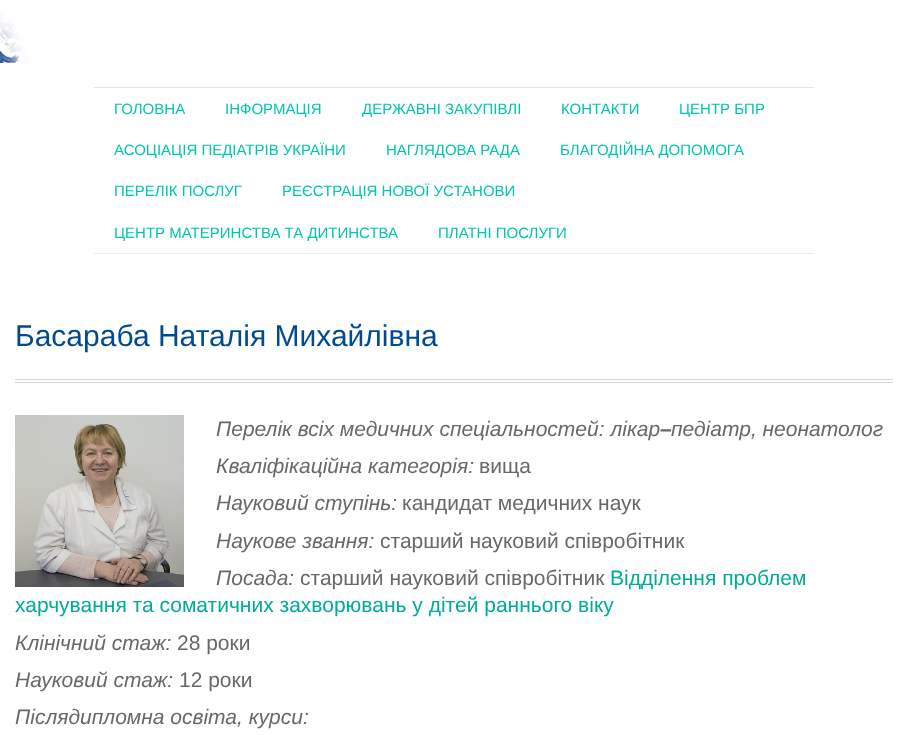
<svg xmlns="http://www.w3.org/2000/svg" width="908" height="735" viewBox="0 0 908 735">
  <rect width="100%" height="100%" fill="rgb(255,255,255)"/>
  <image x="0" y="12" width="33" height="51" href="pic1.png"/>
  <rect x="94" y="87" width="720" height="1" fill="rgb(229,229,229)"/>
  <rect x="94" y="253" width="720" height="1" fill="rgb(237,237,237)"/>
  <g font-family="Liberation Sans" font-size="15" fill="rgb(0,198,173)">
    <text x="114" y="114">ГОЛОВНА</text>
    <text x="225" y="114">ІНФОРМАЦІЯ</text>
    <text x="362" y="114">ДЕРЖАВНІ ЗАКУПІВЛІ</text>
    <text x="561" y="114">КОНТАКТИ</text>
    <text x="679" y="114">ЦЕНТР БПР</text>
    <text x="114" y="155">АСОЦІАЦІЯ ПЕДІАТРІВ УКРАЇНИ</text>
    <text x="386" y="155">НАГЛЯДОВА РАДА</text>
    <text x="560" y="155">БЛАГОДІЙНА ДОПОМОГА</text>
    <text x="114" y="196">ПЕРЕЛІК ПОСЛУГ</text>
    <text x="282" y="196">РЕЄСТРАЦІЯ НОВОЇ УСТАНОВИ</text>
    <text x="114" y="238">ЦЕНТР МАТЕРИНСТВА ТА ДИТИНСТВА</text>
    <text x="438" y="238">ПЛАТНІ ПОСЛУГИ</text>
  </g>
  <rect x="15" y="379" width="878" height="1" fill="rgb(217,217,217)"/>
  <rect x="15" y="382" width="878" height="1" fill="rgb(217,217,217)"/>
  <text x="15" y="346" font-family="Liberation Sans" font-size="30" fill="rgb(0,74,143)">Басараба Наталія Михайлівна</text>
  <image x="15" y="415" width="169" height="172" href="pic2.png"/>
  <text x="216" y="436" font-family="Liberation Sans" font-size="21" font-style="italic" fill="rgb(104,104,104)">Перелік всіх медичних спеціальностей: лікар</text>
  <text x="660" y="436" font-family="Liberation Sans" font-size="21" font-weight="bold" font-style="italic" fill="rgb(104,104,104)">–</text>
  <g font-family="Liberation Sans" font-size="21" font-style="italic" fill="rgb(104,104,104)">
    <text x="671" y="436">педіатр, неонатолог</text>
    <text x="216" y="473">Кваліфікаційна категорія:</text>
  </g>
  <text x="479" y="473" font-family="Liberation Sans" font-size="21" fill="rgb(104,104,104)">вища</text>
  <text x="216" y="510" font-family="Liberation Sans" font-size="21" font-style="italic" fill="rgb(104,104,104)">Науковий ступінь:</text>
  <text x="402" y="510" font-family="Liberation Sans" font-size="21" fill="rgb(104,104,104)">кандидат медичних наук</text>
  <text x="216" y="548" font-family="Liberation Sans" font-size="21" font-style="italic" fill="rgb(104,104,104)">Наукове звання:</text>
  <text x="380" y="548" font-family="Liberation Sans" font-size="21" fill="rgb(104,104,104)">старший науковий співробітник</text>
  <text x="216" y="585" font-family="Liberation Sans" font-size="21" font-style="italic" fill="rgb(104,104,104)">Посада:</text>
  <text x="300" y="585" font-family="Liberation Sans" font-size="21" fill="rgb(104,104,104)">старший науковий співробітник</text>
  <g font-family="Liberation Sans" font-size="21" fill="rgb(0,172,151)">
    <text x="610" y="585">Відділення проблем</text>
    <text x="15" y="612">харчування та соматичних захворювань у дітей раннього віку</text>
  </g>
  <text x="15" y="650" font-family="Liberation Sans" font-size="21" font-style="italic" fill="rgb(104,104,104)">Клінічний стаж:</text>
  <text x="177" y="650" font-family="Liberation Sans" font-size="21" fill="rgb(104,104,104)">28 роки</text>
  <text x="15" y="687" font-family="Liberation Sans" font-size="21" font-style="italic" fill="rgb(104,104,104)">Науковий стаж:</text>
  <text x="179" y="687" font-family="Liberation Sans" font-size="21" fill="rgb(104,104,104)">12 роки</text>
  <text x="15" y="724" font-family="Liberation Sans" font-size="21" font-style="italic" fill="rgb(104,104,104)">Післядипломна освіта, курси:</text>
</svg>
